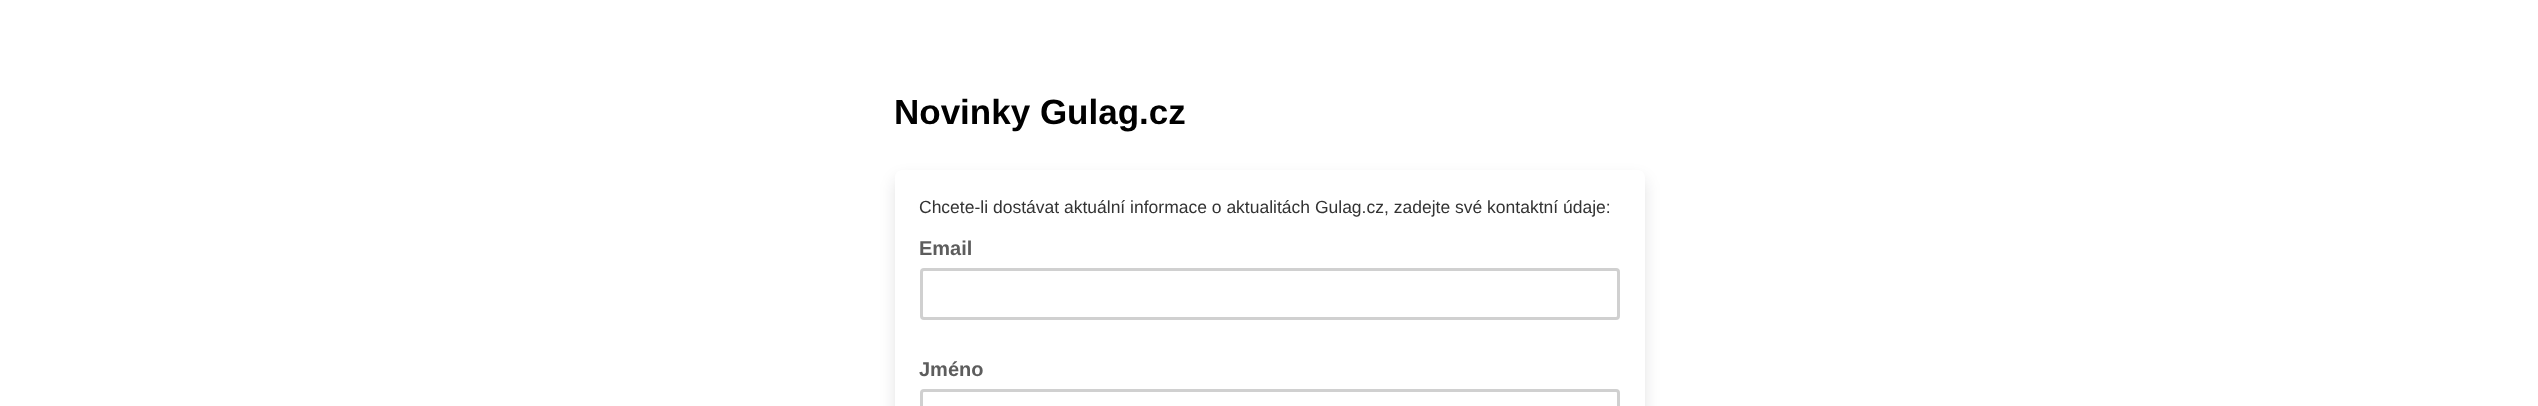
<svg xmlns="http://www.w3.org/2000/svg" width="2538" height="406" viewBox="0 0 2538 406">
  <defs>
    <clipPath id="clip1"><path d="M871 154H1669V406H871ZM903 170H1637C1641.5 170 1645 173.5 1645 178V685C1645 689.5 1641.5 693 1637 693H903C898.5 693 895 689.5 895 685V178C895 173.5 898.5 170 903 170Z" clip-rule="evenodd"/></clipPath>
  </defs>
  <rect width="100%" height="100%" fill="rgb(255,255,255)"/>
  <text x="894" y="124" font-family="Liberation Sans" font-size="35" font-weight="bold" fill="rgb(0,0,0)">Novinky Gulag.cz</text>
  <g clip-path="url(#clip1)">
    <rect x="895" y="178" width="750" height="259" rx="8" fill="rgba(13,18,22,0.12)" filter="blur(7.5px)"/>
  </g>
  <text x="919" y="213" font-family="Liberation Sans" font-size="17.5" fill="rgb(51,51,51)">Chcete-li dostávat aktuální informace o aktualitách Gulag.cz, zadejte své kontaktní údaje:</text>
  <text x="919" y="255" font-family="Liberation Sans" font-size="20" font-weight="bold" fill="rgb(93,93,93)">Email</text>
  <rect x="921.5" y="269.5" width="697" height="49" rx="2.5" fill="none" stroke="rgb(208,208,208)" stroke-width="3"/>
  <text x="919" y="376" font-family="Liberation Sans" font-size="20" font-weight="bold" fill="rgb(93,93,93)">Jméno</text>
  <rect x="921.5" y="390.5" width="697" height="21" rx="2.5" fill="none" stroke="rgb(208,208,208)" stroke-width="3"/>
</svg>
